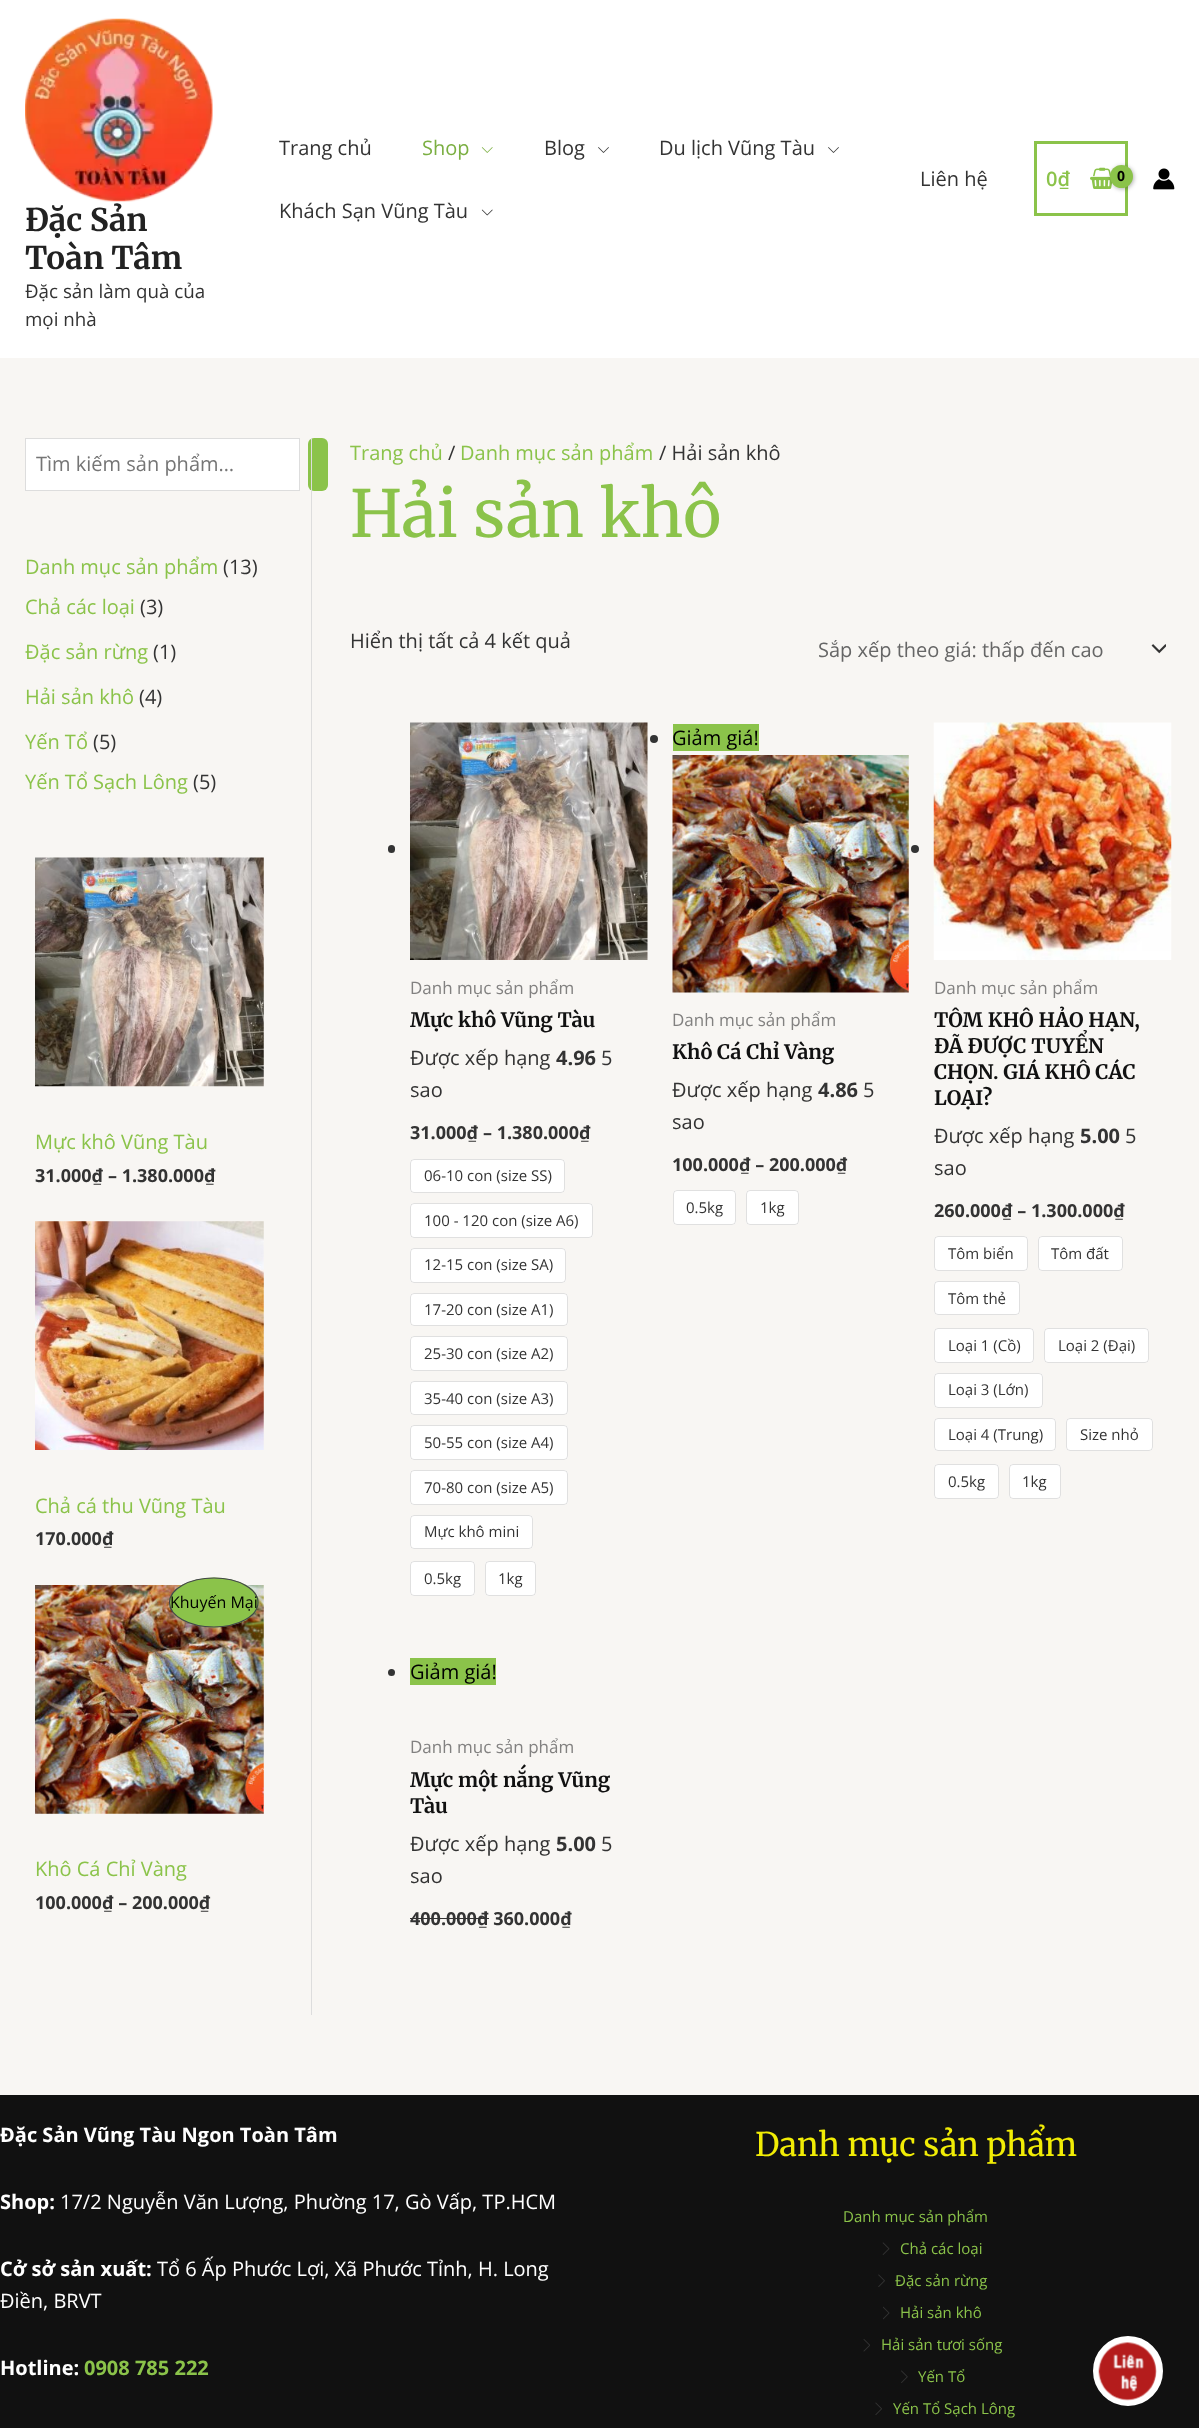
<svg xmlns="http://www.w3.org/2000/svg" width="1199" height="2428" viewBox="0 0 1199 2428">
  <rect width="100%" height="100%" fill="rgb(248,246,243)"/>
  <rect x="0" y="0" width="1199" height="358" fill="rgb(255,255,255)"/>
  <text x="279" y="155" font-family="Open Sans" font-size="20" fill="rgb(51,51,51)">Trang chủ</text>
  <text x="422" y="155" font-family="Open Sans" font-size="20" fill="rgb(123,175,66)">Shop</text>
  <image x="481" y="147" width="12" height="6" href="pic1.png"/>
  <text x="544" y="155" font-family="Open Sans" font-size="20" fill="rgb(51,51,51)">Blog</text>
  <image x="598" y="147" width="11" height="6" href="pic2.png"/>
  <text x="659" y="155" font-family="Open Sans" font-size="20" fill="rgb(51,51,51)">Du lịch Vũng Tàu</text>
  <image x="828" y="147" width="11" height="6" href="pic2.png"/>
  <text x="279" y="218" font-family="Open Sans" font-size="20" fill="rgb(51,51,51)">Khách Sạn Vũng Tàu</text>
  <image x="481" y="209" width="12" height="7" href="pic3.png"/>
  <image x="25" y="18" width="188" height="184" href="pic4.png"/>
  <g font-family="Merriweather" font-size="31.25" font-weight="bold" fill="rgb(34,34,34)">
    <text>
      <tspan x="25" y="231">Đặc Sản</tspan>
      <tspan x="25" y="269">Toàn Tâm</tspan>
    </text>
  </g>
  <g font-family="Open Sans" font-size="18.75" fill="rgb(51,51,51)">
    <text>
      <tspan x="25" y="298">Đặc sản làm quà của</tspan>
      <tspan x="25" y="326">mọi nhà</tspan>
    </text>
  </g>
  <text x="920" y="186" font-family="Open Sans" font-size="20" fill="rgb(51,51,51)">Liên hệ</text>
  <rect x="1035.5" y="142.5" width="91" height="72" fill="none" stroke="rgb(139,195,74)" stroke-width="3"/>
  <text x="1046" y="186" font-family="Open Sans" font-size="20" font-weight="600" fill="rgb(139,195,74)">0₫</text>
  <image x="1090" y="167" width="22" height="22" href="pic5.png"/>
  <rect x="1111" y="166" width="23" height="23" rx="11.5" fill="rgba(0,0,0,0.3)" filter="blur(2px)"/>
  <circle cx="1121.5" cy="176.5" r="11.5" fill="rgb(139,195,74)"/>
  <text x="1117" y="181" font-family="Open Sans" font-size="14" font-weight="bold" letter-spacing="-1" fill="rgb(0,0,0)">0</text>
  <image x="1153" y="168" width="22" height="22" href="pic6.png"/>
  <rect x="25.5" y="438.5" width="274" height="52" fill="rgb(255,255,255)" stroke="rgb(221,221,221)"/>
  <text x="36" y="471" font-family="Open Sans" font-size="20" fill="rgb(117,117,117)">Tìm kiếm sản phẩm…</text>
  <rect x="308" y="438" width="20" height="53" rx="6" fill="rgb(139,195,74)"/>
  <text x="25" y="574" font-family="Open Sans" font-size="20" fill="rgb(139,195,74)">Danh mục sản phẩm</text>
  <text x="223" y="574" font-family="Open Sans" font-size="20" fill="rgb(51,51,51)">(13)</text>
  <text x="25" y="614" font-family="Open Sans" font-size="20" fill="rgb(139,195,74)">Chả các loại</text>
  <text x="140" y="614" font-family="Open Sans" font-size="20" fill="rgb(51,51,51)">(3)</text>
  <text x="25" y="659" font-family="Open Sans" font-size="20" fill="rgb(139,195,74)">Đặc sản rừng</text>
  <text x="153" y="659" font-family="Open Sans" font-size="20" fill="rgb(51,51,51)">(1)</text>
  <text x="25" y="704" font-family="Open Sans" font-size="20" fill="rgb(139,195,74)">Hải sản khô</text>
  <text x="139" y="704" font-family="Open Sans" font-size="20" fill="rgb(51,51,51)">(4)</text>
  <text x="25" y="749" font-family="Open Sans" font-size="20" fill="rgb(139,195,74)">Yến Tổ</text>
  <text x="93" y="749" font-family="Open Sans" font-size="20" fill="rgb(51,51,51)">(5)</text>
  <text x="25" y="789" font-family="Open Sans" font-size="20" fill="rgb(139,195,74)">Yến Tổ Sạch Lông</text>
  <text x="193" y="789" font-family="Open Sans" font-size="20" fill="rgb(51,51,51)">(5)</text>
  <image x="35" y="857" width="229" height="230" href="pic7.png"/>
  <text x="35" y="1149" font-family="Open Sans" font-size="20" fill="rgb(139,195,74)">Mực khô Vũng Tàu</text>
  <text x="35" y="1182" font-family="Open Sans" font-size="18" font-weight="bold" fill="rgb(51,51,51)">31.000₫ – 1.380.000₫</text>
  <image x="35" y="1221" width="229" height="229" href="pic8.png"/>
  <text x="35" y="1513" font-family="Open Sans" font-size="20" fill="rgb(139,195,74)">Chả cá thu Vũng Tàu</text>
  <text x="35" y="1545" font-family="Open Sans" font-size="18" font-weight="bold" fill="rgb(51,51,51)">170.000₫</text>
  <image x="35" y="1585" width="229" height="229" href="pic9.png"/>
  <ellipse cx="214" cy="1602.5" rx="45" ry="25" fill="rgb(139,195,74)"/>
  <path d="M214 1578C238.5 1578 258 1589 258 1602.5C258 1616 238.5 1627 214 1627C189 1627 169.5 1616 169.5 1602.5C169.5 1589 189 1578 214 1578Z" fill="none" stroke="rgb(67,69,75)" stroke-width="1.2"/>
  <text x="170" y="1608" font-family="Open Sans" font-size="16" fill="rgb(0,0,0)">Khuyến Mại</text>
  <text x="35" y="1876" font-family="Open Sans" font-size="20" fill="rgb(139,195,74)">Khô Cá Chỉ Vàng</text>
  <text x="35" y="1909" font-family="Open Sans" font-size="18" font-weight="bold" fill="rgb(51,51,51)">100.000₫ – 200.000₫</text>
  <rect x="311" y="438" width="1" height="1577" fill="rgb(221,221,221)"/>
  <text x="350" y="460" font-family="Open Sans" font-size="20" fill="rgb(139,195,74)">Trang chủ</text>
  <text x="448" y="460" font-family="Open Sans" font-size="20" fill="rgb(51,51,51)">/</text>
  <text x="460" y="460" font-family="Open Sans" font-size="20" fill="rgb(139,195,74)">Danh mục sản phẩm</text>
  <text x="659" y="460" font-family="Open Sans" font-size="20" fill="rgb(51,51,51)">/ Hải sản khô</text>
  <text x="350" y="537" font-family="Merriweather" font-size="65" fill="rgb(139,195,74)">Hải sản khô</text>
  <text x="350" y="648" font-family="Open Sans" font-size="20" fill="rgb(51,51,51)">Hiển thị tất cả 4 kết quả</text>
  <image x="1151" y="644" width="15" height="10" href="pic10.png"/>
  <text x="818" y="657" font-family="Open Sans" font-size="20" fill="rgb(102,102,102)">Sắp xếp theo giá: thấp đến cao</text>
  <rect x="388" y="845" width="7" height="8" rx="3.5" fill="rgb(51,51,51)"/>
  <image x="410" y="722" width="238" height="238" href="pic11.png"/>
  <text x="410" y="994" font-family="Open Sans" font-size="17" fill="rgb(130,129,128)">Danh mục sản phẩm</text>
  <text x="410" y="1027" font-family="Merriweather" font-size="20" font-weight="bold" fill="rgb(17,17,17)">Mực khô Vũng Tàu</text>
  <text x="410" y="1065" font-family="Open Sans" font-size="20" fill="rgb(51,51,51)">Được xếp hạng</text>
  <text x="556" y="1065" font-family="Open Sans" font-size="20" font-weight="bold" fill="rgb(51,51,51)">4.96</text>
  <g font-family="Open Sans" font-size="20" fill="rgb(51,51,51)">
    <text x="601" y="1065">5</text>
    <text x="410" y="1097">sao</text>
  </g>
  <text x="410" y="1139" font-family="Open Sans" font-size="18" font-weight="bold" fill="rgb(51,51,51)">31.000₫ – 1.380.000₫</text>
  <rect x="410" y="1159" width="155" height="34" rx="4" fill="rgb(255,255,255)"/>
  <rect x="410.5" y="1159.5" width="154" height="33" rx="3.5" fill="none" stroke="rgba(0,0,0,0.12)"/>
  <text x="424" y="1181" font-family="Open Sans" font-size="15" fill="rgb(51,51,51)">06-10 con (size SS)</text>
  <rect x="410" y="1203" width="183" height="35" rx="4" fill="rgb(255,255,255)"/>
  <rect x="410.5" y="1203.5" width="182" height="34" rx="3.5" fill="none" stroke="rgba(0,0,0,0.12)"/>
  <text x="424" y="1226" font-family="Open Sans" font-size="15" fill="rgb(51,51,51)">100 - 120 con (size A6)</text>
  <rect x="410" y="1248" width="156" height="35" rx="4" fill="rgb(255,255,255)"/>
  <rect x="410.5" y="1248.5" width="155" height="34" rx="3.5" fill="none" stroke="rgba(0,0,0,0.12)"/>
  <text x="424" y="1270" font-family="Open Sans" font-size="15" fill="rgb(51,51,51)">12-15 con (size SA)</text>
  <rect x="410" y="1293" width="158" height="33" rx="4" fill="rgb(255,255,255)"/>
  <rect x="410.5" y="1293.5" width="157" height="32" rx="3.5" fill="none" stroke="rgba(0,0,0,0.12)"/>
  <text x="424" y="1315" font-family="Open Sans" font-size="15" fill="rgb(51,51,51)">17-20 con (size A1)</text>
  <rect x="410" y="1336" width="158" height="35" rx="4" fill="rgb(255,255,255)"/>
  <rect x="410.5" y="1336.5" width="157" height="34" rx="3.5" fill="none" stroke="rgba(0,0,0,0.12)"/>
  <text x="424" y="1359" font-family="Open Sans" font-size="15" fill="rgb(51,51,51)">25-30 con (size A2)</text>
  <rect x="410" y="1381" width="158" height="34" rx="4" fill="rgb(255,255,255)"/>
  <rect x="410.5" y="1381.5" width="157" height="33" rx="3.5" fill="none" stroke="rgba(0,0,0,0.12)"/>
  <text x="424" y="1404" font-family="Open Sans" font-size="15" fill="rgb(51,51,51)">35-40 con (size A3)</text>
  <rect x="410" y="1425" width="158" height="35" rx="4" fill="rgb(255,255,255)"/>
  <rect x="410.5" y="1425.5" width="157" height="34" rx="3.5" fill="none" stroke="rgba(0,0,0,0.12)"/>
  <text x="424" y="1448" font-family="Open Sans" font-size="15" fill="rgb(51,51,51)">50-55 con (size A4)</text>
  <rect x="410" y="1470" width="158" height="35" rx="4" fill="rgb(255,255,255)"/>
  <rect x="410.5" y="1470.5" width="157" height="34" rx="3.5" fill="none" stroke="rgba(0,0,0,0.12)"/>
  <text x="424" y="1493" font-family="Open Sans" font-size="15" fill="rgb(51,51,51)">70-80 con (size A5)</text>
  <rect x="410" y="1515" width="123" height="34" rx="4" fill="rgb(255,255,255)"/>
  <rect x="410.5" y="1515.5" width="122" height="33" rx="3.5" fill="none" stroke="rgba(0,0,0,0.12)"/>
  <text x="424" y="1537" font-family="Open Sans" font-size="15" fill="rgb(51,51,51)">Mực khô mini</text>
  <rect x="410" y="1561" width="65" height="35" rx="4" fill="rgb(255,255,255)"/>
  <rect x="410.5" y="1561.5" width="64" height="34" rx="3.5" fill="none" stroke="rgba(0,0,0,0.12)"/>
  <text x="424" y="1584" font-family="Open Sans" font-size="15" fill="rgb(51,51,51)">0.5kg</text>
  <rect x="485" y="1561" width="51" height="35" rx="4" fill="rgb(255,255,255)"/>
  <rect x="485.5" y="1561.5" width="50" height="34" rx="3.5" fill="none" stroke="rgba(0,0,0,0.12)"/>
  <text x="498" y="1584" font-family="Open Sans" font-size="15" fill="rgb(51,51,51)">1kg</text>
  <circle cx="654" cy="739" r="4" fill="rgb(51,51,51)"/>
  <rect x="673" y="724" width="86" height="27" fill="rgb(139,195,74)"/>
  <text x="672" y="745" font-family="Open Sans" font-size="20" fill="rgb(0,0,0)">Giảm giá!</text>
  <image x="672" y="755" width="237" height="238" href="pic12.png"/>
  <text x="672" y="1026" font-family="Open Sans" font-size="17" fill="rgb(130,129,128)">Danh mục sản phẩm</text>
  <text x="672" y="1059" font-family="Merriweather" font-size="20" font-weight="bold" fill="rgb(17,17,17)">Khô Cá Chỉ Vàng</text>
  <text x="672" y="1097" font-family="Open Sans" font-size="20" fill="rgb(51,51,51)">Được xếp hạng</text>
  <text x="818" y="1097" font-family="Open Sans" font-size="20" font-weight="bold" fill="rgb(51,51,51)">4.86</text>
  <g font-family="Open Sans" font-size="20" fill="rgb(51,51,51)">
    <text x="863" y="1097">5</text>
    <text x="672" y="1129">sao</text>
  </g>
  <text x="672" y="1171" font-family="Open Sans" font-size="18" font-weight="bold" fill="rgb(51,51,51)">100.000₫ – 200.000₫</text>
  <rect x="673" y="1190" width="63" height="35" rx="4" fill="rgb(255,255,255)"/>
  <rect x="673.5" y="1190.5" width="62" height="34" rx="3.5" fill="none" stroke="rgba(0,0,0,0.12)"/>
  <text x="686" y="1213" font-family="Open Sans" font-size="15" fill="rgb(51,51,51)">0.5kg</text>
  <rect x="746" y="1190" width="53" height="35" rx="4" fill="rgb(255,255,255)"/>
  <rect x="746.5" y="1190.5" width="52" height="34" rx="3.5" fill="none" stroke="rgba(0,0,0,0.12)"/>
  <text x="760" y="1213" font-family="Open Sans" font-size="15" fill="rgb(51,51,51)">1kg</text>
  <circle cx="915" cy="849" r="4" fill="rgb(51,51,51)"/>
  <image x="933" y="722" width="239" height="238" href="pic13.png"/>
  <text x="934" y="994" font-family="Open Sans" font-size="17" fill="rgb(130,129,128)">Danh mục sản phẩm</text>
  <g font-family="Merriweather" font-size="20" font-weight="bold" fill="rgb(17,17,17)">
    <text>
      <tspan x="934" y="1027">TÔM KHÔ HẢO HẠN,</tspan>
      <tspan x="934" y="1053">ĐÃ ĐƯỢC TUYỂN</tspan>
      <tspan x="934" y="1079">CHỌN. GIÁ KHÔ CÁC</tspan>
      <tspan x="934" y="1105">LOẠI?</tspan>
    </text>
  </g>
  <text x="934" y="1143" font-family="Open Sans" font-size="20" fill="rgb(51,51,51)">Được xếp hạng</text>
  <text x="1080" y="1143" font-family="Open Sans" font-size="20" font-weight="bold" fill="rgb(51,51,51)">5.00</text>
  <g font-family="Open Sans" font-size="20" fill="rgb(51,51,51)">
    <text x="1125" y="1143">5</text>
    <text x="934" y="1175">sao</text>
  </g>
  <text x="934" y="1217" font-family="Open Sans" font-size="18" font-weight="bold" fill="rgb(51,51,51)">260.000₫ – 1.300.000₫</text>
  <rect x="934" y="1236" width="94" height="35" rx="4" fill="rgb(255,255,255)"/>
  <rect x="934.5" y="1236.5" width="93" height="34" rx="3.5" fill="none" stroke="rgba(0,0,0,0.12)"/>
  <text x="948" y="1259" font-family="Open Sans" font-size="15" fill="rgb(51,51,51)">Tôm biển</text>
  <rect x="1038" y="1236" width="85" height="35" rx="4" fill="rgb(255,255,255)"/>
  <rect x="1038.5" y="1236.5" width="84" height="34" rx="3.5" fill="none" stroke="rgba(0,0,0,0.12)"/>
  <text x="1051" y="1259" font-family="Open Sans" font-size="15" fill="rgb(51,51,51)">Tôm đất</text>
  <rect x="934" y="1281" width="86" height="34" rx="4" fill="rgb(255,255,255)"/>
  <rect x="934.5" y="1281.5" width="85" height="33" rx="3.5" fill="none" stroke="rgba(0,0,0,0.12)"/>
  <text x="948" y="1304" font-family="Open Sans" font-size="15" fill="rgb(51,51,51)">Tôm thẻ</text>
  <rect x="934" y="1328" width="100" height="35" rx="4" fill="rgb(255,255,255)"/>
  <rect x="934.5" y="1328.5" width="99" height="34" rx="3.5" fill="none" stroke="rgba(0,0,0,0.12)"/>
  <text x="948" y="1351" font-family="Open Sans" font-size="15" fill="rgb(51,51,51)">Loại 1 (Cồ)</text>
  <rect x="1044" y="1328" width="105" height="35" rx="4" fill="rgb(255,255,255)"/>
  <rect x="1044.5" y="1328.5" width="104" height="34" rx="3.5" fill="none" stroke="rgba(0,0,0,0.12)"/>
  <text x="1058" y="1351" font-family="Open Sans" font-size="15" fill="rgb(51,51,51)">Loại 2 (Đại)</text>
  <rect x="934" y="1373" width="109" height="35" rx="4" fill="rgb(255,255,255)"/>
  <rect x="934.5" y="1373.5" width="108" height="34" rx="3.5" fill="none" stroke="rgba(0,0,0,0.12)"/>
  <text x="948" y="1395" font-family="Open Sans" font-size="15" fill="rgb(51,51,51)">Loại 3 (Lớn)</text>
  <rect x="934" y="1418" width="122" height="33" rx="4" fill="rgb(255,255,255)"/>
  <rect x="934.5" y="1418.5" width="121" height="32" rx="3.5" fill="none" stroke="rgba(0,0,0,0.12)"/>
  <text x="948" y="1440" font-family="Open Sans" font-size="15" fill="rgb(51,51,51)">Loại 4 (Trung)</text>
  <rect x="1066" y="1418" width="87" height="33" rx="4" fill="rgb(255,255,255)"/>
  <rect x="1066.5" y="1418.5" width="86" height="32" rx="3.5" fill="none" stroke="rgba(0,0,0,0.12)"/>
  <text x="1080" y="1440" font-family="Open Sans" font-size="15" fill="rgb(51,51,51)">Size nhỏ</text>
  <rect x="934" y="1464" width="65" height="35" rx="4" fill="rgb(255,255,255)"/>
  <rect x="934.5" y="1464.5" width="64" height="34" rx="3.5" fill="none" stroke="rgba(0,0,0,0.12)"/>
  <text x="948" y="1487" font-family="Open Sans" font-size="15" fill="rgb(51,51,51)">0.5kg</text>
  <rect x="1009" y="1464" width="52" height="35" rx="4" fill="rgb(255,255,255)"/>
  <rect x="1009.5" y="1464.5" width="51" height="34" rx="3.5" fill="none" stroke="rgba(0,0,0,0.12)"/>
  <text x="1022" y="1487" font-family="Open Sans" font-size="15" fill="rgb(51,51,51)">1kg</text>
  <circle cx="391.5" cy="1672.5" r="3.5" fill="rgb(51,51,51)"/>
  <rect x="410" y="1658" width="86" height="27" fill="rgb(139,195,74)"/>
  <text x="410" y="1679" font-family="Open Sans" font-size="20" fill="rgb(0,0,0)">Giảm giá!</text>
  <text x="410" y="1753" font-family="Open Sans" font-size="17" fill="rgb(130,129,128)">Danh mục sản phẩm</text>
  <g font-family="Merriweather" font-size="20" font-weight="bold" fill="rgb(17,17,17)">
    <text>
      <tspan x="410" y="1787">Mực một nắng Vũng</tspan>
      <tspan x="410" y="1813">Tàu</tspan>
    </text>
  </g>
  <text x="410" y="1851" font-family="Open Sans" font-size="20" fill="rgb(51,51,51)">Được xếp hạng</text>
  <text x="556" y="1851" font-family="Open Sans" font-size="20" font-weight="bold" fill="rgb(51,51,51)">5.00</text>
  <g font-family="Open Sans" font-size="20" fill="rgb(51,51,51)">
    <text x="601" y="1851">5</text>
    <text x="410" y="1883">sao</text>
  </g>
  <text x="410" y="1925" font-family="Open Sans" font-size="18" font-weight="bold" fill="rgb(51,51,51)">400.000₫ 360.000₫</text>
  <rect x="410" y="1918" width="79" height="1" fill="rgb(51,51,51)"/>
  <rect x="0" y="2095" width="1199" height="333" fill="rgb(17,17,17)"/>
  <g font-family="Open Sans" font-size="20" font-weight="bold" fill="rgb(255,255,255)">
    <text x="0" y="2142">Đặc Sản Vũng Tàu Ngon Toàn Tâm</text>
    <text x="0" y="2209">Shop:</text>
  </g>
  <text x="60" y="2209" font-family="Open Sans" font-size="20" fill="rgb(255,255,255)">17/2 Nguyễn Văn Lượng, Phường 17, Gò Vấp, TP.HCM</text>
  <text x="0" y="2276" font-family="Open Sans" font-size="20" font-weight="bold" fill="rgb(255,255,255)">Cở sở sản xuất:</text>
  <g font-family="Open Sans" font-size="20" fill="rgb(255,255,255)">
    <text x="157" y="2276">Tổ 6 Ấp Phước Lợi, Xã Phước Tỉnh, H. Long</text>
    <text x="0" y="2308">Điền, BRVT</text>
  </g>
  <text x="0" y="2375" font-family="Open Sans" font-size="20" font-weight="bold" fill="rgb(255,255,255)">Hotline:</text>
  <text x="84" y="2375" font-family="Open Sans" font-size="20" font-weight="bold" fill="rgb(139,195,74)">0908 785 222</text>
  <text x="755" y="2156" font-family="Merriweather" font-size="32.5" fill="rgb(241,236,5)">Danh mục sản phẩm</text>
  <text x="843" y="2222" font-family="Open Sans" font-size="15" fill="rgb(139,195,74)">Danh mục sản phẩm</text>
  <image x="882" y="2242" width="8" height="13" href="pic14.png"/>
  <text x="900" y="2254" font-family="Open Sans" font-size="15" fill="rgb(139,195,74)">Chả các loại</text>
  <image x="878" y="2274" width="7" height="13" href="pic15.png"/>
  <text x="895" y="2286" font-family="Open Sans" font-size="15" fill="rgb(139,195,74)">Đặc sản rừng</text>
  <image x="883" y="2306" width="7" height="14" href="pic16.png"/>
  <text x="900" y="2318" font-family="Open Sans" font-size="15" fill="rgb(139,195,74)">Hải sản khô</text>
  <image x="863" y="2339" width="7" height="13" href="pic17.png"/>
  <text x="881" y="2350" font-family="Open Sans" font-size="15" fill="rgb(139,195,74)">Hải sản tươi sống</text>
  <image x="901" y="2370" width="7" height="13" href="pic18.png"/>
  <text x="918" y="2382" font-family="Open Sans" font-size="15" fill="rgb(139,195,74)">Yến Tổ</text>
  <image x="875" y="2402" width="7" height="13" href="pic19.png"/>
  <text x="893" y="2414" font-family="Open Sans" font-size="15" fill="rgb(139,195,74)">Yến Tổ Sạch Lông</text>
  <circle cx="1128" cy="2371" r="32" fill="rgb(255,255,255)" stroke="rgb(255,255,255)" stroke-width="6"/>
  <image x="1098" y="2342" width="59" height="59" href="pic20.png"/>
</svg>
